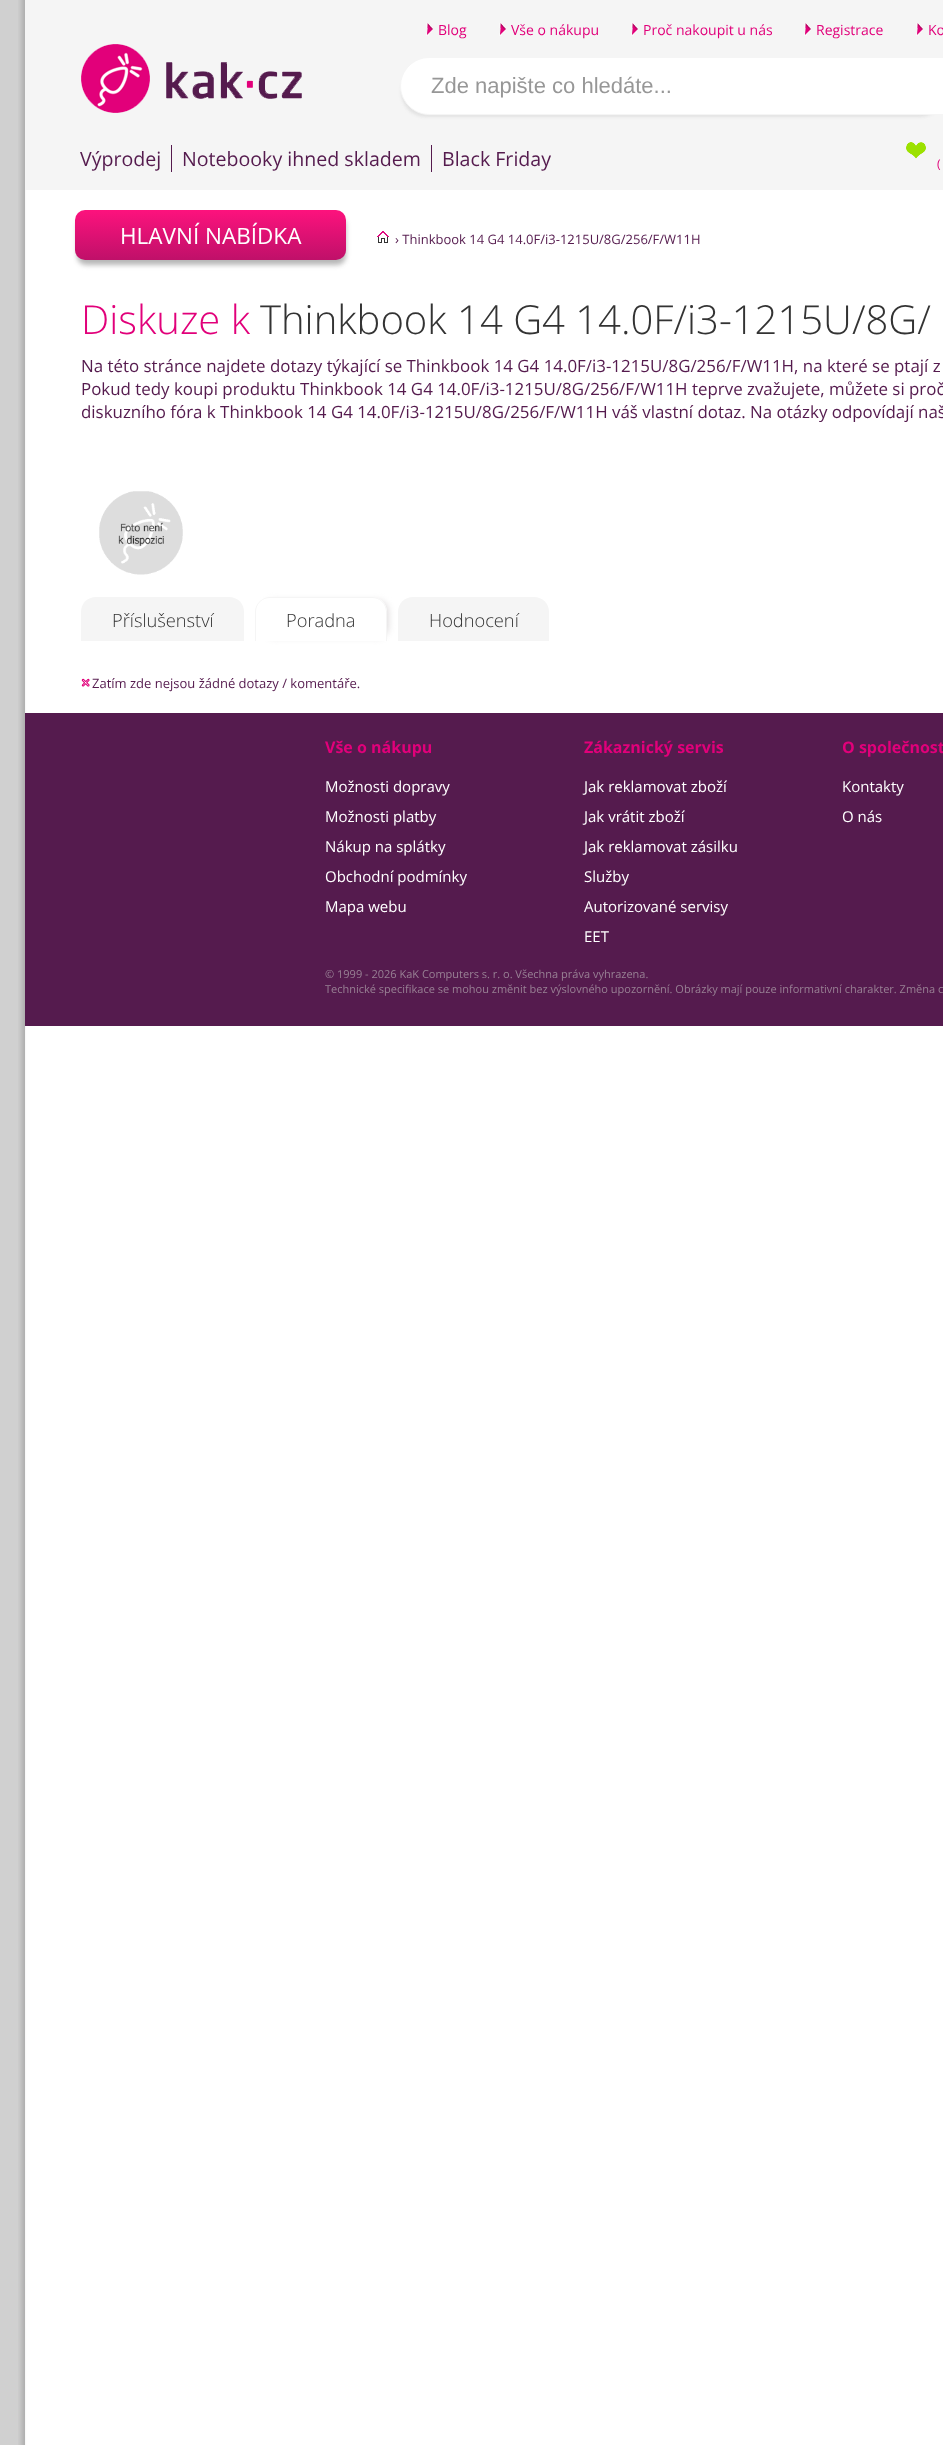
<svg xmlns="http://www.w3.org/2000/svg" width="943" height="2445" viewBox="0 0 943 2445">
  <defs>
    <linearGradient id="g1" gradientUnits="userSpaceOnUse" x1="211" y1="210" x2="211" y2="260"><stop offset="0" stop-color="rgb(253,18,125)"/><stop offset="1" stop-color="rgb(191,16,105)"/></linearGradient>
  </defs>
  <rect width="100%" height="100%" fill="rgb(208,208,208)"/>
  <image x="18" y="0" width="925" height="2445" href="pic1.png"/>
  <rect x="25" y="0" width="918" height="190" fill="rgb(245,245,245)"/>
  <image x="426" y="23" width="7" height="13" href="pic2.png"/>
  <text x="438" y="35" font-family="Open Sans" font-size="14" fill="rgb(225,0,122)">Blog</text>
  <image x="499" y="23" width="7" height="13" href="pic2.png"/>
  <text x="511" y="35" font-family="Open Sans" font-size="14" fill="rgb(225,0,122)">Vše o nákupu</text>
  <image x="631" y="23" width="7" height="13" href="pic2.png"/>
  <text x="643" y="35" font-family="Open Sans" font-size="14" fill="rgb(225,0,122)">Proč nakoupit u nás</text>
  <image x="804" y="23" width="7" height="13" href="pic2.png"/>
  <text x="816" y="35" font-family="Open Sans" font-size="14" fill="rgb(225,0,122)">Registrace</text>
  <image x="916" y="23" width="7" height="13" href="pic2.png"/>
  <text x="928" y="35" font-family="Open Sans" font-size="14" fill="rgb(225,0,122)">Ko</text>
  <image x="81" y="44" width="221" height="69" href="pic3.png"/>
  <rect x="401" y="67" width="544" height="50" rx="25" fill="rgb(226,226,226)" filter="blur(1.5px)"/>
  <path d="M429 57.5H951.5V114.5H429C413.5 114.5 400.5 101.5 400.5 86C400.5 70.5 413.5 57.5 429 57.5Z" fill="rgb(255,255,255)" stroke="rgb(245,245,245)"/>
  <text x="431" y="93" font-family="Liberation Sans" font-size="22" fill="rgb(151,151,151)">Zde napište co hledáte...</text>
  <rect x="171" y="145" width="1" height="27" fill="rgb(85,27,78)"/>
  <text x="80" y="166" font-family="Open Sans" font-size="19.6" fill="rgb(85,27,78)">Výprodej</text>
  <rect x="431" y="145" width="1" height="27" fill="rgb(85,27,78)"/>
  <g font-family="Open Sans" font-size="19.6" fill="rgb(85,27,78)">
    <text x="182" y="166">Notebooky ihned skladem</text>
    <text x="442" y="166">Black Friday</text>
  </g>
  <image x="906" y="142" width="20" height="17" href="pic4.png"/>
  <text x="937" y="168" font-family="Open Sans" font-size="12" fill="rgb(225,0,122)">(</text>
  <rect x="77" y="217" width="269" height="48" rx="9" fill="rgb(183,183,183)" filter="blur(2.5px)"/>
  <rect x="75" y="210" width="271" height="50" rx="10" fill="url(#g1)"/>
  <text x="120" y="244" font-family="Open Sans" font-size="22.5" fill="rgb(255,255,255)">HLAVNÍ NABÍDKA</text>
  <image x="377" y="231" width="12" height="12" href="pic5.png"/>
  <text x="395" y="244" font-family="Open Sans" font-size="13" fill="rgb(85,27,78)">› Thinkbook 14 G4 14.0F/i3-1215U/8G/256/F/W11H</text>
  <text x="81" y="334" font-family="Open Sans" font-size="40" font-weight="300" fill="rgb(225,0,122)">Diskuze k</text>
  <text x="260" y="334" font-family="Open Sans" font-size="40" font-weight="300" fill="rgb(51,51,51)">Thinkbook 14 G4 14.0F/i3-1215U/8G/</text>
  <g font-family="Open Sans" font-size="16.9" fill="rgb(85,27,78)">
    <text>
      <tspan x="81" y="372">Na této stránce najdete dotazy týkající se Thinkbook 14 G4 14.0F/i3-1215U/8G/256/F/W11H, na které se ptají z</tspan>
      <tspan x="81" y="395">Pokud tedy koupi produktu Thinkbook 14 G4 14.0F/i3-1215U/8G/256/F/W11H teprve zvažujete, můžete si proč</tspan>
      <tspan x="81" y="418">diskuzního fóra k Thinkbook 14 G4 14.0F/i3-1215U/8G/256/F/W11H váš vlastní dotaz. Na otázky odpovídají naš</tspan>
    </text>
  </g>
  <image x="99" y="491" width="84" height="84" href="pic6.png"/>
  <path d="M96 597H229C237.5 597 244 603.5 244 612V641H81V612C81 603.5 87.5 597 96 597Z" fill="rgb(245,245,245)"/>
  <text x="112" y="627" font-family="Open Sans" font-size="18.25" font-weight="300" fill="rgb(51,51,51)">Příslušenství</text>
  <rect x="263" y="600" width="126" height="38" rx="12" fill="rgb(226,223,224)" filter="blur(3px)"/>
  <path d="M270 597H372C380.5 597 387 603.5 387 612V641H255V612C255 603.5 261.5 597 270 597Z" fill="rgb(255,255,255)"/>
  <path d="M270 597H372C380 597 387 604 387 612V641H255V612C255 604 262 597 270 597ZM270 598H372C380 598 386 604 386 612V641H256V612C256 604 262 598 270 598Z" fill="rgb(245,245,245)" fill-rule="evenodd"/>
  <text x="286" y="627" font-family="Open Sans" font-size="18.25" font-weight="300" fill="rgb(51,51,51)">Poradna</text>
  <path d="M413 597H534C542.5 597 549 603.5 549 612V641H398V612C398 603.5 404.5 597 413 597Z" fill="rgb(245,245,245)"/>
  <text x="429" y="627" font-family="Open Sans" font-size="18.25" font-weight="300" fill="rgb(51,51,51)">Hodnocení</text>
  <image x="81" y="678" width="9" height="9" href="pic7.png"/>
  <text x="92" y="688" font-family="Open Sans" font-size="13" fill="rgb(85,27,78)">Zatím zde nejsou žádné dotazy / komentáře.</text>
  <rect x="25" y="713" width="918" height="313" fill="rgb(85,27,78)"/>
  <text x="325" y="753" font-family="Open Sans" font-size="16" font-weight="bold" fill="rgb(225,0,122)">Vše o nákupu</text>
  <g font-family="Open Sans" font-size="15" fill="rgb(255,255,255)">
    <text x="325" y="792">Možnosti dopravy</text>
    <text x="325" y="822">Možnosti platby</text>
    <text x="325" y="852">Nákup na splátky</text>
    <text x="325" y="882">Obchodní podmínky</text>
    <text x="325" y="912">Mapa webu</text>
  </g>
  <text x="584" y="753" font-family="Open Sans" font-size="16" font-weight="bold" fill="rgb(225,0,122)">Zákaznický servis</text>
  <g font-family="Open Sans" font-size="15" fill="rgb(255,255,255)">
    <text x="584" y="792">Jak reklamovat zboží</text>
    <text x="584" y="822">Jak vrátit zboží</text>
    <text x="584" y="852">Jak reklamovat zásilku</text>
    <text x="584" y="882">Služby</text>
    <text x="584" y="912">Autorizované servisy</text>
    <text x="584" y="942">EET</text>
  </g>
  <text x="842" y="753" font-family="Open Sans" font-size="16" font-weight="bold" fill="rgb(225,0,122)">O společnost</text>
  <g font-family="Open Sans" font-size="15" fill="rgb(255,255,255)">
    <text x="842" y="792">Kontakty</text>
    <text x="842" y="822">O nás</text>
  </g>
  <g font-family="Open Sans" font-size="11" fill="rgb(152,128,148)">
    <text>
      <tspan x="325" y="978">© 1999 - 2026 KaK Computers s. r. o. Všechna práva vyhrazena.</tspan>
      <tspan x="325" y="993">Technické specifikace se mohou změnit bez výslovného upozornění. Obrázky mají pouze informativní charakter. Změna c</tspan>
    </text>
  </g>
</svg>
